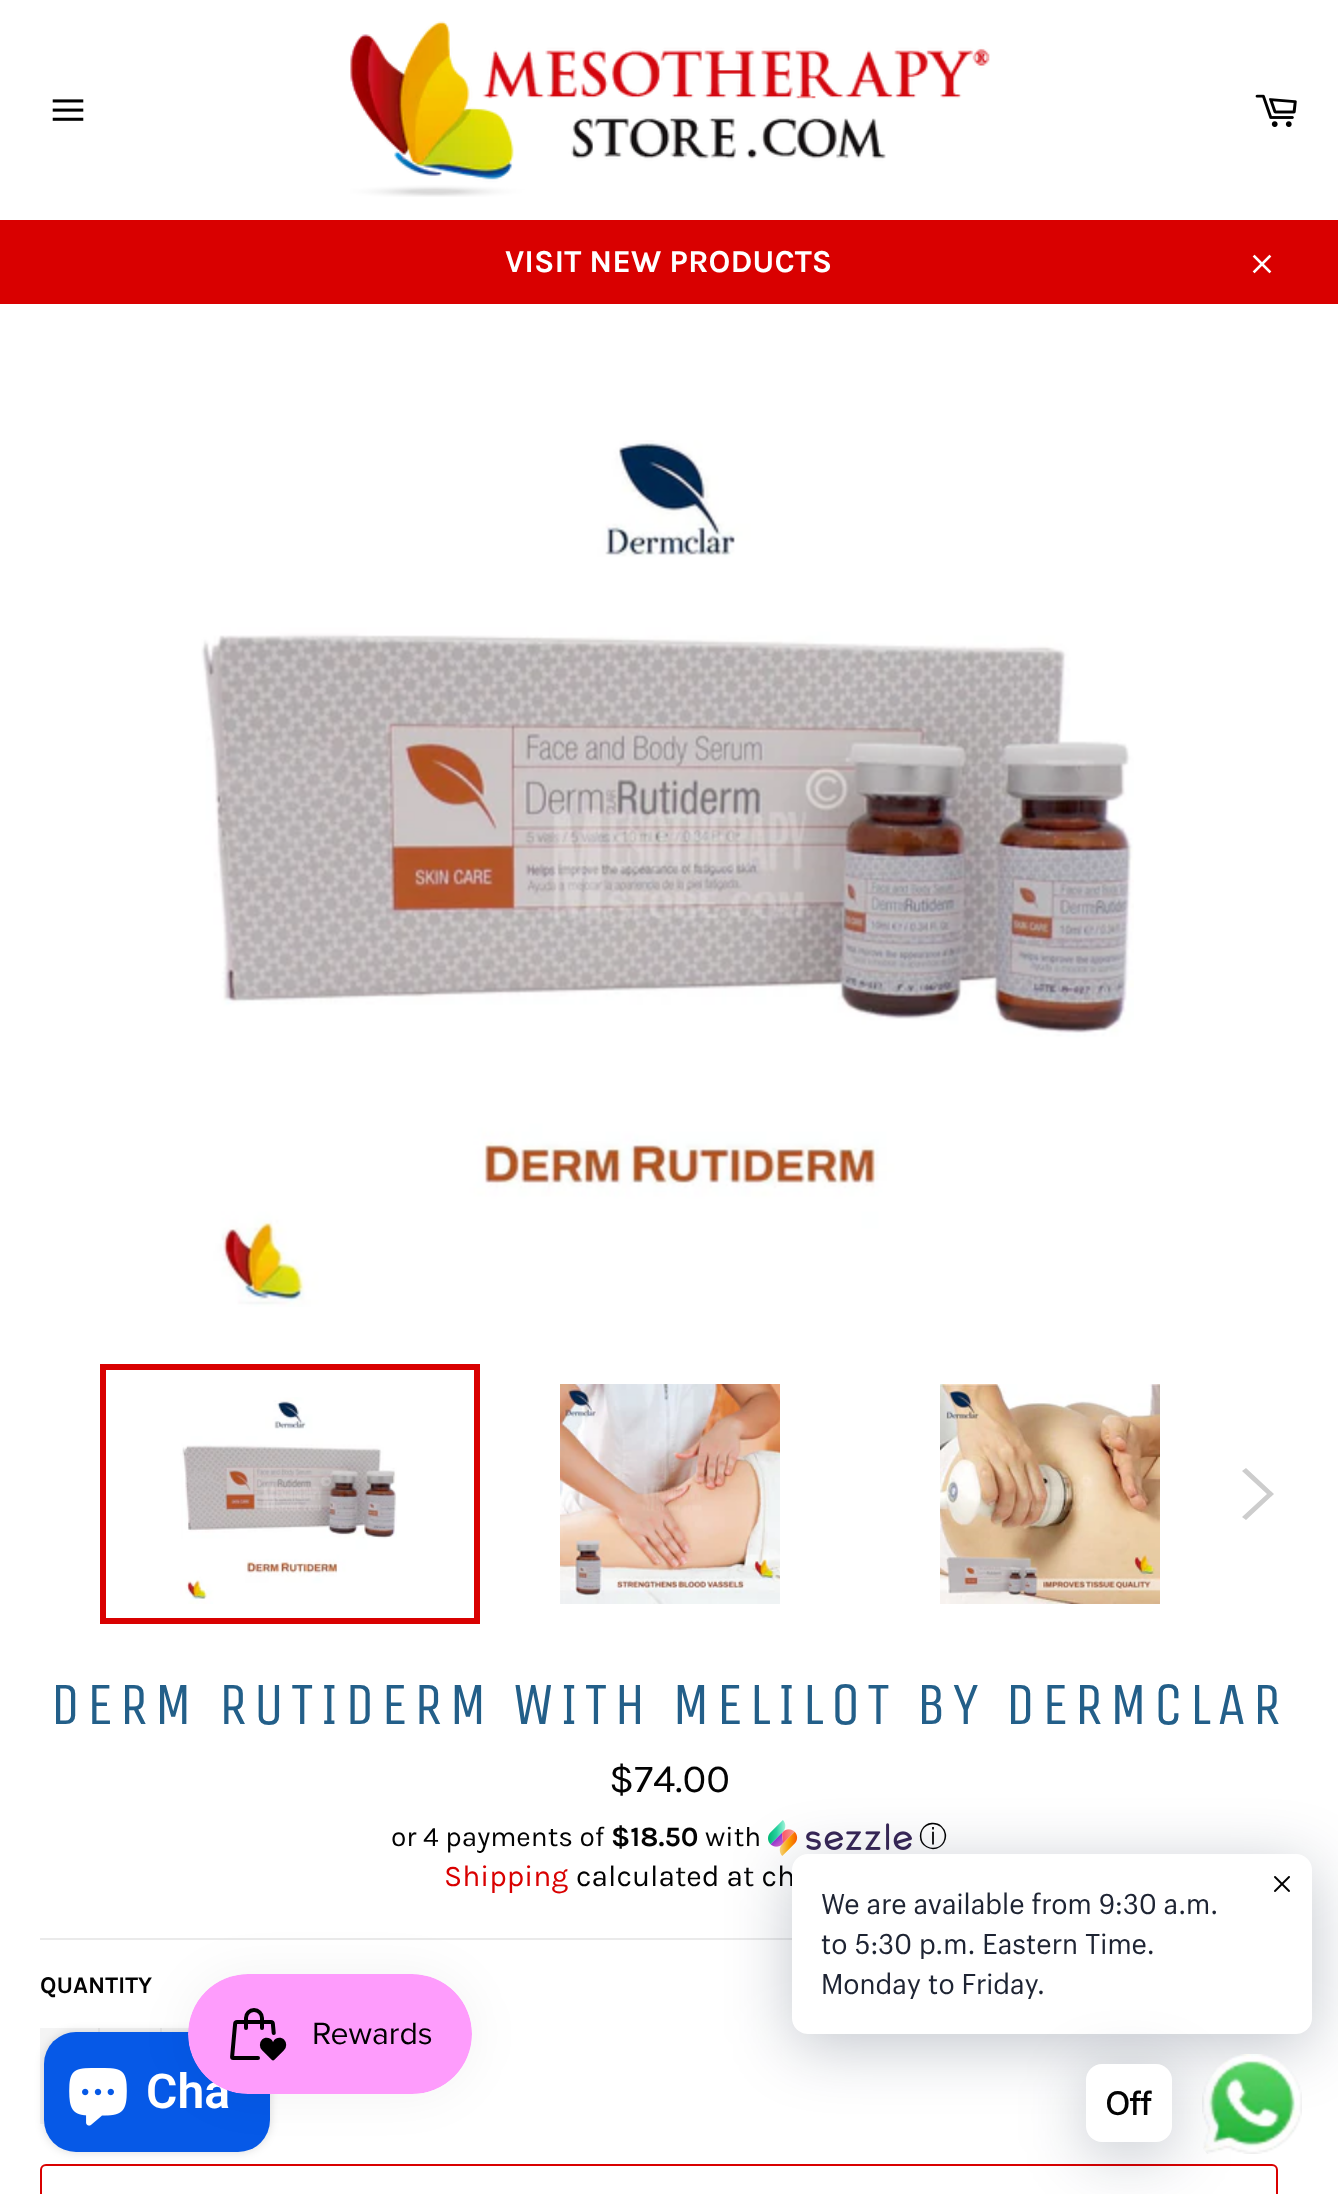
<svg xmlns="http://www.w3.org/2000/svg" width="1338" height="2194" viewBox="0 0 1338 2194">
  <rect width="100%" height="100%" fill="rgb(255,255,255)"/>
  <image x="52" y="99" width="32" height="22" href="pic1.png"/>
  <image x="350" y="21" width="640" height="176" href="pic2.png"/>
  <image x="1255" y="94" width="42" height="33" href="pic3.png"/>
  <rect x="0" y="220" width="1338" height="84" fill="rgb(217,0,0)"/>
  <text x="505" y="272" font-family="Karla" font-size="32" font-weight="bold" fill="rgb(255,255,255)">VISIT NEW PRODUCTS</text>
  <image x="1252" y="254" width="20" height="20" href="pic4.png"/>
  <image x="201" y="440" width="933" height="867" href="pic5.png"/>
  <image x="180" y="1397" width="217" height="207" href="pic6.png"/>
  <rect x="103" y="1367" width="374" height="254" fill="none" stroke="rgb(217,0,0)" stroke-width="6"/>
  <image x="560" y="1384" width="220" height="220" href="pic7.png"/>
  <image x="940" y="1384" width="220" height="220" href="pic8.png"/>
  <path d="M1242 1471L1246 1468L1274 1494L1246 1520L1242 1517L1267 1494Z" fill="rgb(205,205,205)"/>
  <text x="50" y="1724" font-family="Unica One" font-size="60" letter-spacing="6" fill="rgb(35,95,137)">DERM RUTIDERM WITH MELILOT BY DERMCLAR</text>
  <text x="609" y="1792" font-family="Karla" font-size="40" fill="rgb(3,3,3)">$74.00</text>
  <text x="391" y="1846" font-family="Karla" font-size="28" fill="rgb(3,3,3)">or 4 payments of</text>
  <text x="611" y="1846" font-family="Karla" font-size="28" font-weight="bold" fill="rgb(3,3,3)">$18.50</text>
  <text x="705" y="1846" font-family="Karla" font-size="28" fill="rgb(3,3,3)">with</text>
  <image x="768" y="1820" width="144" height="36" href="pic9.png"/>
  <text x="919" y="1846" font-family="WenQuanYi Zen Hei" font-size="28" font-weight="500" fill="rgb(3,3,3)">ⓘ</text>
  <text x="444" y="1886" font-family="Karla" font-size="30" fill="rgb(217,0,0)">Shipping</text>
  <text x="576" y="1886" font-family="Karla" font-size="30" fill="rgb(3,3,3)">calculated at ch</text>
  <rect x="40" y="1938" width="752" height="2" fill="rgb(234,234,234)"/>
  <text x="40" y="1993" font-family="Karla" font-size="24" font-weight="bold" fill="rgb(3,3,3)">QUANTITY</text>
  <rect x="40" y="2028" width="149" height="96" fill="rgb(244,244,244)"/>
  <rect x="98" y="2028" width="2" height="4" fill="rgb(231,231,231)"/>
  <rect x="160" y="2028" width="2" height="4" fill="rgb(231,231,231)"/>
  <rect x="41" y="2165" width="1236" height="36" rx="5" fill="none" stroke="rgb(217,0,0)" stroke-width="2"/>
  <rect x="44" y="2032" width="226" height="120" rx="32" fill="rgba(0,0,0,0.15)" filter="blur(5px)"/>
  <rect x="44" y="2032" width="226" height="120" rx="32" fill="rgb(6,89,231)"/>
  <image x="69" y="2068" width="58" height="58" href="pic13.png"/>
  <rect x="188" y="1974" width="284" height="120" rx="60" fill="rgba(0,0,0,0.05)" filter="blur(25px)"/>
  <text x="146" y="2108" font-family="Roboto" font-size="48" font-weight="600" fill="rgb(255,255,255)">Cha</text>
  <image x="188" y="1974" width="284" height="120" href="pic10.png"/>
  <rect x="792" y="1866" width="520" height="180" rx="16" fill="rgba(0,18,46,0.24)" filter="blur(32px)"/>
  <rect x="792" y="1854" width="520" height="180" rx="16" fill="rgb(255,255,255)"/>
  <image x="1274" y="1876" width="16" height="16" href="pic11.png"/>
  <g font-family="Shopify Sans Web" font-size="28" fill="rgb(30,36,51)">
    <text>
      <tspan x="821" y="1914">We are available from 9:30 a.m.</tspan>
      <tspan x="821" y="1954">to 5:30 p.m. Eastern Time.</tspan>
      <tspan x="821" y="1994">Monday to Friday.</tspan>
    </text>
  </g>
  <image x="1202" y="2054" width="100" height="100" href="pic12.png"/>
  <rect x="1086" y="2076" width="86" height="78" rx="16" fill="rgba(0,18,46,0.24)" filter="blur(32px)"/>
  <rect x="1086" y="2064" width="86" height="78" rx="16" fill="rgb(255,255,255)"/>
  <text x="1105" y="2115" font-family="Muli" font-size="32" font-weight="bold" fill="rgb(3,3,3)">Off</text>
</svg>
